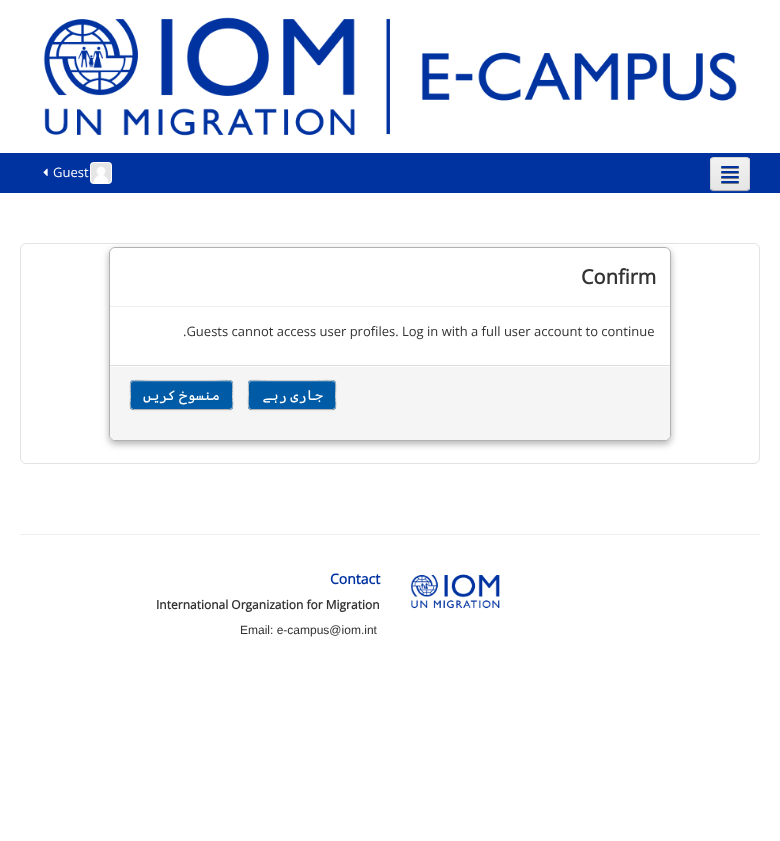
<svg xmlns="http://www.w3.org/2000/svg" width="780" height="841" viewBox="0 0 780 841">
  <defs>
    <clipPath id="clip1"><rect x="710" y="157" width="40" height="34" rx="4"/></clipPath>
    <linearGradient id="g1" gradientUnits="userSpaceOnUse" x1="730" y1="158" x2="730" y2="190"><stop offset="0" stop-color="rgb(242,242,242)"/><stop offset="1" stop-color="rgb(229,229,229)"/></linearGradient>
    <clipPath id="clip2"><path d="M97 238H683V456H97ZM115 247H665C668.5 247 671 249.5 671 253V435C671 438.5 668.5 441 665 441H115C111.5 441 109 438.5 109 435V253C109 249.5 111.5 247 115 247Z" clip-rule="evenodd"/></clipPath>
    <clipPath id="clip3"><rect x="130" y="380" width="103" height="30" rx="4"/></clipPath>
    <linearGradient id="g2" gradientUnits="userSpaceOnUse" x1="182" y1="409" x2="182" y2="381"><stop offset="0" stop-color="rgb(0,93,170)"/><stop offset="1" stop-color="rgb(0,84,153)" stop-opacity="0.25"/></linearGradient>
    <clipPath id="clip4"><rect x="248" y="380" width="88" height="30" rx="4"/></clipPath>
    <linearGradient id="g3" gradientUnits="userSpaceOnUse" x1="292" y1="409" x2="292" y2="381"><stop offset="0" stop-color="rgb(0,93,170)"/><stop offset="1" stop-color="rgb(0,84,153)" stop-opacity="0.25"/></linearGradient>
  </defs>
  <rect width="100%" height="100%" fill="rgb(255,255,255)"/>
  <image x="43" y="17" width="694" height="119" href="pic1.png"/>
  <rect x="0" y="153" width="780" height="40" fill="rgb(0,51,160)"/>
  <rect x="90" y="162" width="22" height="22" rx="4" fill="rgb(255,255,255)"/>
  <image x="43" y="168" width="5" height="8" href="pic2.png"/>
  <text x="53" y="177" font-family="Open Sans" font-size="13" fill="rgb(255,255,255)">Guest</text>
  <image x="91" y="163" width="20" height="20" href="pic3.png"/>
  <path d="M710 187C710 193 715 192 719 192H741C745 192 750 193 750 187C750 189 748 191 746 191H714C712 191 710 189 710 187Z" fill="rgb(19,66,167)"/>
  <rect x="710" y="157" width="40" height="34" rx="4" fill="rgb(237,237,237)"/>
  <g clip-path="url(#clip1)">
    <rect x="710" y="158" width="40" height="32" fill="url(#g1)"/>
  </g>
  <path d="M748.5 189.5C748 190 747 190.5 746 190.5H714C713 190.5 712 190 711.5 189.5" fill="none" stroke="rgba(0,0,0,0.25)"/>
  <path d="M711.5 189.5C710 188 710.5 184.5 710.5 182.5V165.5C710.5 157 711 157.5 719.5 157.5H740.5C749 157.5 749.5 157 749.5 165.5V182.5C749.5 184.5 750 188 748.5 189.5" fill="none" stroke="rgba(0,0,0,0.1)"/>
  <rect x="721" y="167" width="18" height="2" rx="1" fill="rgba(0,0,0,0.45)" filter="blur(0.5px)"/>
  <rect x="721" y="166" width="18" height="2" rx="1" fill="rgb(0,51,160)"/>
  <rect x="721" y="172" width="18" height="2" rx="1" fill="rgba(0,0,0,0.45)" filter="blur(0.5px)"/>
  <rect x="721" y="171" width="18" height="2" rx="1" fill="rgb(0,51,160)"/>
  <rect x="721" y="177" width="18" height="2" rx="1" fill="rgba(0,0,0,0.45)" filter="blur(0.5px)"/>
  <rect x="721" y="176" width="18" height="2" rx="1" fill="rgb(0,51,160)"/>
  <rect x="721" y="182" width="18" height="2" rx="1" fill="rgba(0,0,0,0.45)" filter="blur(0.5px)"/>
  <rect x="721" y="181" width="18" height="2" rx="1" fill="rgb(0,51,160)"/>
  <rect x="20.5" y="243.5" width="739" height="220" rx="5.5" fill="none" stroke="rgb(227,227,227)"/>
  <g clip-path="url(#clip2)">
    <rect x="109" y="250" width="562" height="194" rx="6" fill="rgba(0,0,0,0.3)" filter="blur(3.5px)"/>
  </g>
  <rect x="109.5" y="247.5" width="561" height="193" rx="5.5" fill="none" stroke="rgba(0,0,0,0.3)"/>
  <rect x="110" y="306" width="560" height="1" fill="rgb(238,238,238)"/>
  <text x="581" y="284" font-family="Open Sans" font-size="20" font-weight="bold" fill="rgb(51,51,51)">Confirm</text>
  <text x="183" y="336" font-family="Open Sans" font-size="13" fill="rgb(51,51,51)">.Guests cannot access user profiles. Log in with a full user account to continue</text>
  <path d="M110 365H670V434C670 437.5 667.5 440 664 440H116C112.5 440 110 437.5 110 434Z" fill="rgb(245,245,245)"/>
  <rect x="110" y="366" width="560" height="1" fill="rgb(255,255,255)"/>
  <rect x="110" y="365" width="560" height="1" fill="rgb(221,221,221)"/>
  <rect x="130" y="381" width="103" height="30" rx="4" fill="rgba(0,0,0,0.05)" filter="blur(1px)"/>
  <rect x="130" y="380" width="103" height="30" rx="4" fill="rgb(0,93,170)"/>
  <g clip-path="url(#clip3)">
    <rect x="130" y="381" width="103" height="28" fill="url(#g2)"/>
  </g>
  <path d="M134 382H229C231 382 232 383 232 385C232 377 216 381 213 381H150C147 381 131 377 131 385C131 383 132 382 134 382Z" fill="rgba(255,255,255,0.2)"/>
  <path d="M231.5 408.5L229 409.5H133.5L131.5 408.5" fill="none" stroke="rgb(179,179,179)"/>
  <path d="M131.5 408.5C129 406 130.5 401.5 130.5 398.5C130.5 377 127 380.5 150 380.5H213C236 380.5 232.5 377 232.5 398.5C232.5 401.5 234 406 231.5 408.5" fill="none" stroke="rgb(204,204,204)"/>
  <text x="220" y="400" word-spacing="-5" font-family="Cascadia Code" font-size="14" direction="rtl" fill="rgb(255,255,255)">منسوخ کریں</text>
  <rect x="248" y="381" width="88" height="30" rx="4" fill="rgba(0,0,0,0.05)" filter="blur(1px)"/>
  <rect x="248" y="380" width="88" height="30" rx="4" fill="rgb(0,93,170)"/>
  <g clip-path="url(#clip4)">
    <rect x="248" y="381" width="88" height="28" fill="url(#g3)"/>
  </g>
  <path d="M252 382H332C334 382 335 383 335 385C335 377 322 381 319 381H265C262 381 249 377 249 385C249 383 250 382 252 382Z" fill="rgba(255,255,255,0.2)"/>
  <path d="M334.5 408.5L332.5 409.5H251.5L249.5 408.5" fill="none" stroke="rgb(179,179,179)"/>
  <path d="M249.5 408.5C247.5 406.5 248.5 398 248.5 395C248.5 377.5 246.5 380.5 265.5 380.5H318.5C339.5 380.5 335.5 378 335.5 398.5C335.5 401.5 337 406 334.5 408.5" fill="none" stroke="rgb(204,204,204)"/>
  <text x="323" y="400" word-spacing="-5" font-family="Cascadia Code" font-size="14" direction="rtl" fill="rgb(255,255,255)">جاری رہے</text>
  <rect x="20" y="534" width="740" height="1" fill="rgb(238,238,238)"/>
  <text x="330" y="584" font-family="Open Sans" font-size="14" font-weight="bold" fill="rgb(0,51,160)">Contact</text>
  <text x="156" y="609" font-family="Open Sans" font-size="12" font-weight="bold" fill="rgb(51,51,51)">International Organization for Migration</text>
  <text x="240" y="634" font-family="Liberation Sans" font-size="12" fill="rgb(51,51,51)">Email: e-campus@iom.int</text>
  <image x="410" y="574" width="90" height="35" href="pic4.png"/>
</svg>
